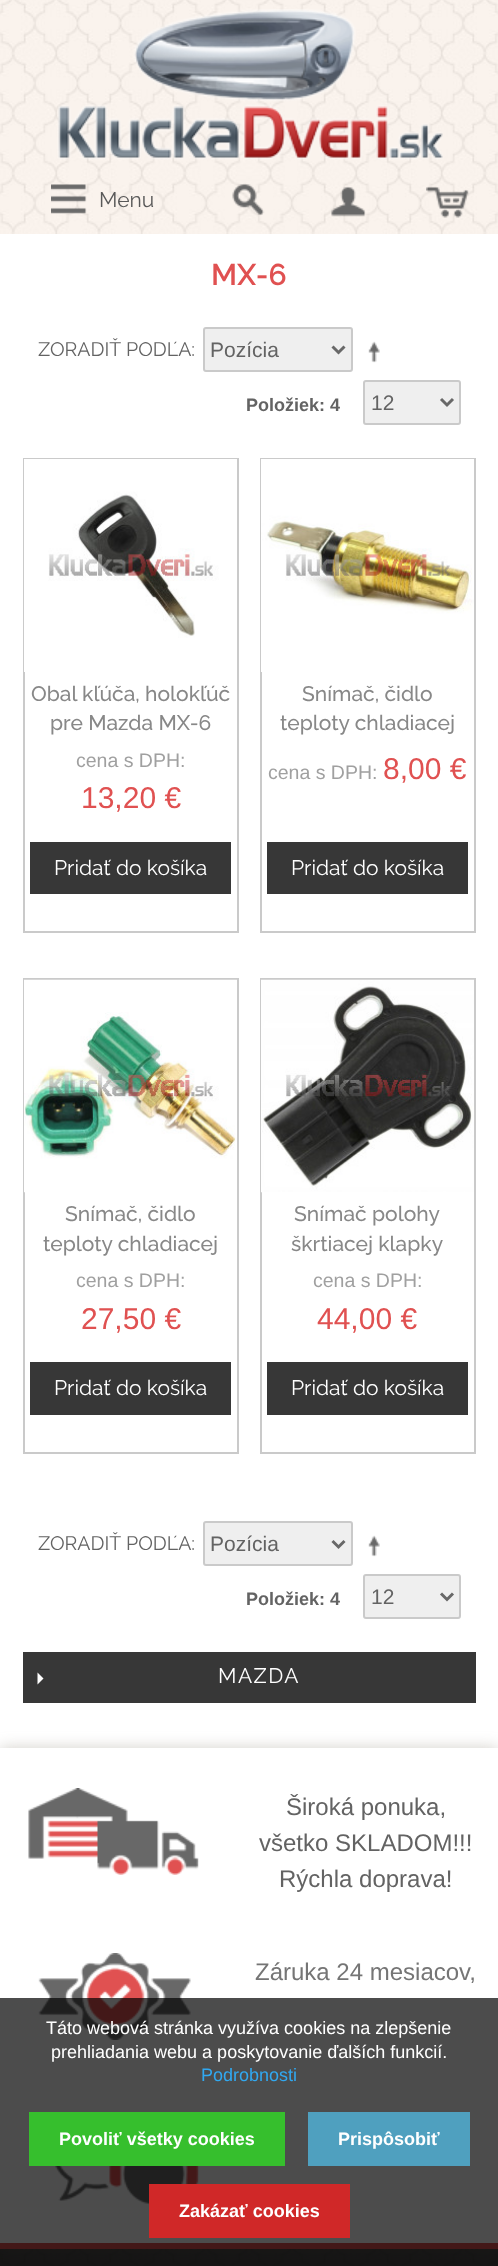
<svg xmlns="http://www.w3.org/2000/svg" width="498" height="2266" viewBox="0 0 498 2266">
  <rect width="100%" height="100%" fill="rgb(255,255,255)"/>
  <image x="0" y="0" width="498" height="2266" href="pic1.png"/>
  <image x="57" y="9" width="386" height="151" href="pic2.png"/>
  <image x="51" y="184" width="36" height="30" href="pic3.png"/>
  <text x="99" y="207" font-family="Raleway" font-size="21" fill="rgb(89,89,89)">Menu</text>
  <image x="232" y="183" width="33" height="33" href="pic4.png"/>
  <image x="331" y="186" width="35" height="31" href="pic5.png"/>
  <image x="426" y="186" width="43" height="32" href="pic6.png"/>
  <rect x="0" y="234" width="498" height="1514" fill="rgb(255,255,255)"/>
  <text x="211" y="285" font-family="Raleway" font-size="30" font-weight="600" fill="rgb(224,81,81)">MX-6</text>
  <text x="38" y="356" font-family="Raleway" font-size="19.5" fill="rgb(99,99,99)">ZORADIŤ PODĽA:</text>
  <rect x="204" y="328" width="148" height="43" rx="2" fill="rgb(239,239,239)" stroke="rgb(202,202,202)" stroke-width="2"/>
  <path d="M332.5 346.5L338.5 352.5L344.5 346.5" fill="none" stroke="rgb(104,104,104)" stroke-width="3"/>
  <text x="210" y="357" font-family="Liberation Sans" font-size="21" fill="rgb(99,99,99)">Pozícia</text>
  <image x="368" y="341" width="12" height="22" href="pic7.png"/>
  <text x="246" y="411" font-family="Liberation Sans" font-size="18" font-weight="bold" fill="rgb(99,99,99)">Položiek: 4</text>
  <rect x="364" y="381" width="96" height="43" rx="2" fill="rgb(239,239,239)" stroke="rgb(202,202,202)" stroke-width="2"/>
  <path d="M441 399L447 405L453 399" fill="none" stroke="rgb(104,104,104)" stroke-width="3"/>
  <text x="371" y="410" font-family="Liberation Sans" font-size="21" fill="rgb(99,99,99)">12</text>
  <rect x="24" y="459" width="214" height="473" fill="none" stroke="rgb(202,202,202)" stroke-width="2"/>
  <image x="24" y="459" width="213" height="213" href="pic8.png"/>
  <g font-family="Raleway" font-size="21" font-weight="500" fill="rgb(136,136,136)">
    <text x="31" y="701">Obal kľúča, holokľúč</text>
    <text x="50" y="730">pre Mazda MX-6</text>
  </g>
  <text x="76" y="767" font-family="Liberation Sans" font-size="19.5" fill="rgb(160,160,160)">cena s DPH:</text>
  <text x="81" y="808" font-family="Liberation Sans" font-size="30" fill="rgb(224,81,81)">13,20 €</text>
  <rect x="30" y="842" width="201" height="52" fill="rgb(55,55,55)"/>
  <text x="54" y="875" font-family="Raleway" font-size="21" fill="rgb(255,255,255)">Pridať do košíka</text>
  <rect x="261" y="459" width="214" height="473" fill="none" stroke="rgb(202,202,202)" stroke-width="2"/>
  <image x="261" y="459" width="213" height="213" href="pic9.png"/>
  <g font-family="Raleway" font-size="21" font-weight="500" fill="rgb(136,136,136)">
    <text x="302" y="701">Snímač, čidlo</text>
    <text x="280" y="730">teploty chladiacej</text>
  </g>
  <text x="268" y="779" font-family="Liberation Sans" font-size="19.5" fill="rgb(160,160,160)">cena s DPH:</text>
  <text x="383" y="779" font-family="Liberation Sans" font-size="30" fill="rgb(224,81,81)">8,00 €</text>
  <rect x="267" y="842" width="201" height="52" fill="rgb(55,55,55)"/>
  <text x="291" y="875" font-family="Raleway" font-size="21" fill="rgb(255,255,255)">Pridať do košíka</text>
  <rect x="24" y="979" width="214" height="474" fill="none" stroke="rgb(202,202,202)" stroke-width="2"/>
  <image x="24" y="979" width="213" height="214" href="pic10.png"/>
  <g font-family="Raleway" font-size="21" font-weight="500" fill="rgb(136,136,136)">
    <text x="65" y="1221">Snímač, čidlo</text>
    <text x="43" y="1251">teploty chladiacej</text>
  </g>
  <text x="76" y="1287" font-family="Liberation Sans" font-size="19.5" fill="rgb(160,160,160)">cena s DPH:</text>
  <text x="81" y="1329" font-family="Liberation Sans" font-size="30" fill="rgb(224,81,81)">27,50 €</text>
  <rect x="30" y="1362" width="201" height="53" fill="rgb(55,55,55)"/>
  <text x="54" y="1395" font-family="Raleway" font-size="21" fill="rgb(255,255,255)">Pridať do košíka</text>
  <rect x="261" y="979" width="214" height="474" fill="none" stroke="rgb(202,202,202)" stroke-width="2"/>
  <image x="261" y="979" width="213" height="214" href="pic11.png"/>
  <g font-family="Raleway" font-size="21" font-weight="500" fill="rgb(136,136,136)">
    <text x="294" y="1221">Snímač polohy</text>
    <text x="291" y="1251">škrtiacej klapky</text>
  </g>
  <text x="313" y="1287" font-family="Liberation Sans" font-size="19.5" fill="rgb(160,160,160)">cena s DPH:</text>
  <text x="317" y="1329" font-family="Liberation Sans" font-size="30" fill="rgb(224,81,81)">44,00 €</text>
  <rect x="267" y="1362" width="201" height="53" fill="rgb(55,55,55)"/>
  <text x="291" y="1395" font-family="Raleway" font-size="21" fill="rgb(255,255,255)">Pridať do košíka</text>
  <text x="38" y="1550" font-family="Raleway" font-size="19.5" fill="rgb(99,99,99)">ZORADIŤ PODĽA:</text>
  <rect x="204" y="1522" width="148" height="43" rx="2" fill="rgb(239,239,239)" stroke="rgb(202,202,202)" stroke-width="2"/>
  <path d="M332.5 1541L338.5 1547L344.5 1541" fill="none" stroke="rgb(104,104,104)" stroke-width="3"/>
  <text x="210" y="1551" font-family="Liberation Sans" font-size="21" fill="rgb(99,99,99)">Pozícia</text>
  <image x="368" y="1535" width="12" height="22" href="pic7.png"/>
  <text x="246" y="1605" font-family="Liberation Sans" font-size="18" font-weight="bold" fill="rgb(99,99,99)">Položiek: 4</text>
  <rect x="364" y="1575" width="96" height="43" rx="2" fill="rgb(239,239,239)" stroke="rgb(202,202,202)" stroke-width="2"/>
  <path d="M441 1593.5L447 1599.5L453 1593.5" fill="none" stroke="rgb(104,104,104)" stroke-width="3"/>
  <text x="371" y="1604" font-family="Liberation Sans" font-size="21" fill="rgb(99,99,99)">12</text>
  <rect x="23" y="1652" width="453" height="51" fill="rgb(55,55,55)"/>
  <path d="M37.5 1684.5V1672.5L43.5 1678.5Z" fill="rgb(255,255,255)"/>
  <text x="218" y="1683" font-family="Raleway" font-size="21" letter-spacing="1.5" fill="rgb(255,255,255)">MAZDA</text>
  <rect x="0" y="2249" width="498" height="17" fill="rgba(0,0,0,0.7)"/>
  <rect x="0" y="1748" width="498" height="495" fill="rgba(142,136,120,0.4)" filter="blur(7.5px)"/>
  <rect x="0" y="1748" width="498" height="495" fill="rgb(255,255,255)"/>
  <image x="28" y="1788" width="171" height="87" href="pic12.png"/>
  <g font-family="Liberation Sans" font-size="24" fill="rgb(99,99,99)">
    <text x="286" y="1815">Široká ponuka,</text>
    <text x="259" y="1851">všetko SKLADOM!!!</text>
    <text x="279" y="1887">Rýchla doprava!</text>
  </g>
  <image x="38" y="1953" width="153" height="87" href="pic13.png"/>
  <text x="255" y="1980" font-family="Liberation Sans" font-size="24" fill="rgb(117,117,117)">Záruka 24 mesiacov,</text>
  <image x="55" y="2166" width="144" height="39" href="pic14.png"/>
  <rect x="0" y="2243" width="498" height="6" fill="rgb(224,81,81)"/>
  <rect x="0" y="1998" width="498" height="268" fill="rgba(0,0,0,0.7)"/>
  <g font-family="Liberation Sans" font-size="18" fill="rgb(255,255,255)">
    <text x="46" y="2034">Táto webová stránka využíva cookies na zlepšenie</text>
    <text x="51" y="2058">prehliadania webu a poskytovanie ďalších funkcií.</text>
  </g>
  <text x="201" y="2081" font-family="Liberation Sans" font-size="18" fill="rgb(49,168,240)">Podrobnosti</text>
  <rect x="29" y="2112" width="256" height="54" fill="rgb(54,191,45)"/>
  <text x="59" y="2145" font-family="Liberation Sans" font-size="18" font-weight="bold" fill="rgb(255,255,255)">Povoliť všetky cookies</text>
  <rect x="308" y="2112" width="162" height="54" fill="rgb(79,160,191)"/>
  <text x="338" y="2145" font-family="Liberation Sans" font-size="18" font-weight="bold" fill="rgb(255,255,255)">Prispôsobiť</text>
  <rect x="149" y="2184" width="201" height="54" fill="rgb(208,40,40)"/>
  <text x="179" y="2217" font-family="Liberation Sans" font-size="18" font-weight="bold" fill="rgb(255,255,255)">Zakázať cookies</text>
</svg>
